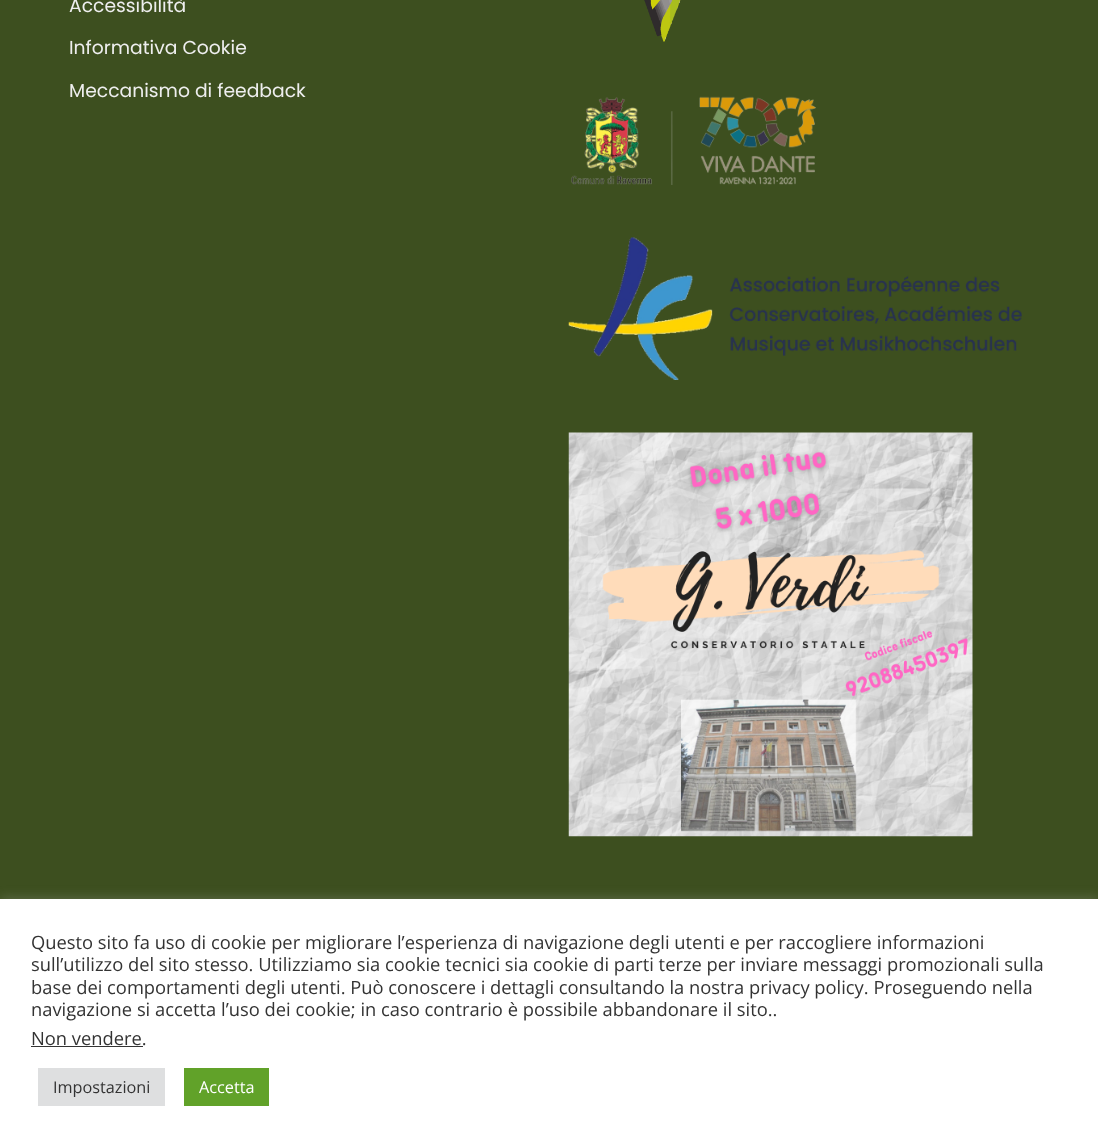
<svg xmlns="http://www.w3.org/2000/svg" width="1098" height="1143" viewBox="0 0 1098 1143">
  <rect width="100%" height="100%" fill="rgb(61,79,31)"/>
  <g font-family="Poppins" font-size="18.75" fill="rgb(238,238,238)">
    <text x="69" y="12">Accessibilità</text>
    <text x="69" y="54">Informativa Cookie</text>
    <text x="69" y="97">Meccanismo di feedback</text>
  </g>
  <image x="644" y="0" width="37" height="42" href="pic1.png"/>
  <image x="571" y="96" width="245" height="89" href="pic2.png"/>
  <image x="568" y="237" width="454" height="143" href="pic3.png"/>
  <image x="568" y="432" width="405" height="405" href="pic4.png"/>
  <rect x="0" y="898" width="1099" height="245" fill="rgba(172,171,171,0.3)" filter="blur(6px)"/>
  <rect x="0" y="899" width="1098" height="244" fill="rgb(255,255,255)"/>
  <g font-family="Open Sans" font-size="18.33" fill="rgb(51,51,51)">
    <text>
      <tspan x="31" y="949">Questo sito fa uso di cookie per migliorare l’esperienza di navigazione degli utenti e per raccogliere informazioni</tspan>
      <tspan x="31" y="971">sull’utilizzo del sito stesso. Utilizziamo sia cookie tecnici sia cookie di parti terze per inviare messaggi promozionali sulla</tspan>
      <tspan x="31" y="994">base dei comportamenti degli utenti. Può conoscere i dettagli consultando la nostra privacy policy. Proseguendo nella</tspan>
      <tspan x="31" y="1016">navigazione si accetta l’uso dei cookie; in caso contrario è possibile abbandonare il sito..</tspan>
      <tspan x="31" y="1045">Non vendere.</tspan>
    </text>
  </g>
  <rect x="31" y="1046" width="112" height="1" fill="rgb(51,51,51)"/>
  <rect x="38" y="1068" width="127" height="38" fill="rgb(222,223,224)"/>
  <text x="53" y="1093" font-family="Open Sans" font-size="16.25" fill="rgb(51,51,51)">Impostazioni</text>
  <rect x="184" y="1068" width="85" height="38" fill="rgb(97,162,41)"/>
  <text x="199" y="1093" font-family="Open Sans" font-size="16.25" fill="rgb(255,255,255)">Accetta</text>
</svg>
